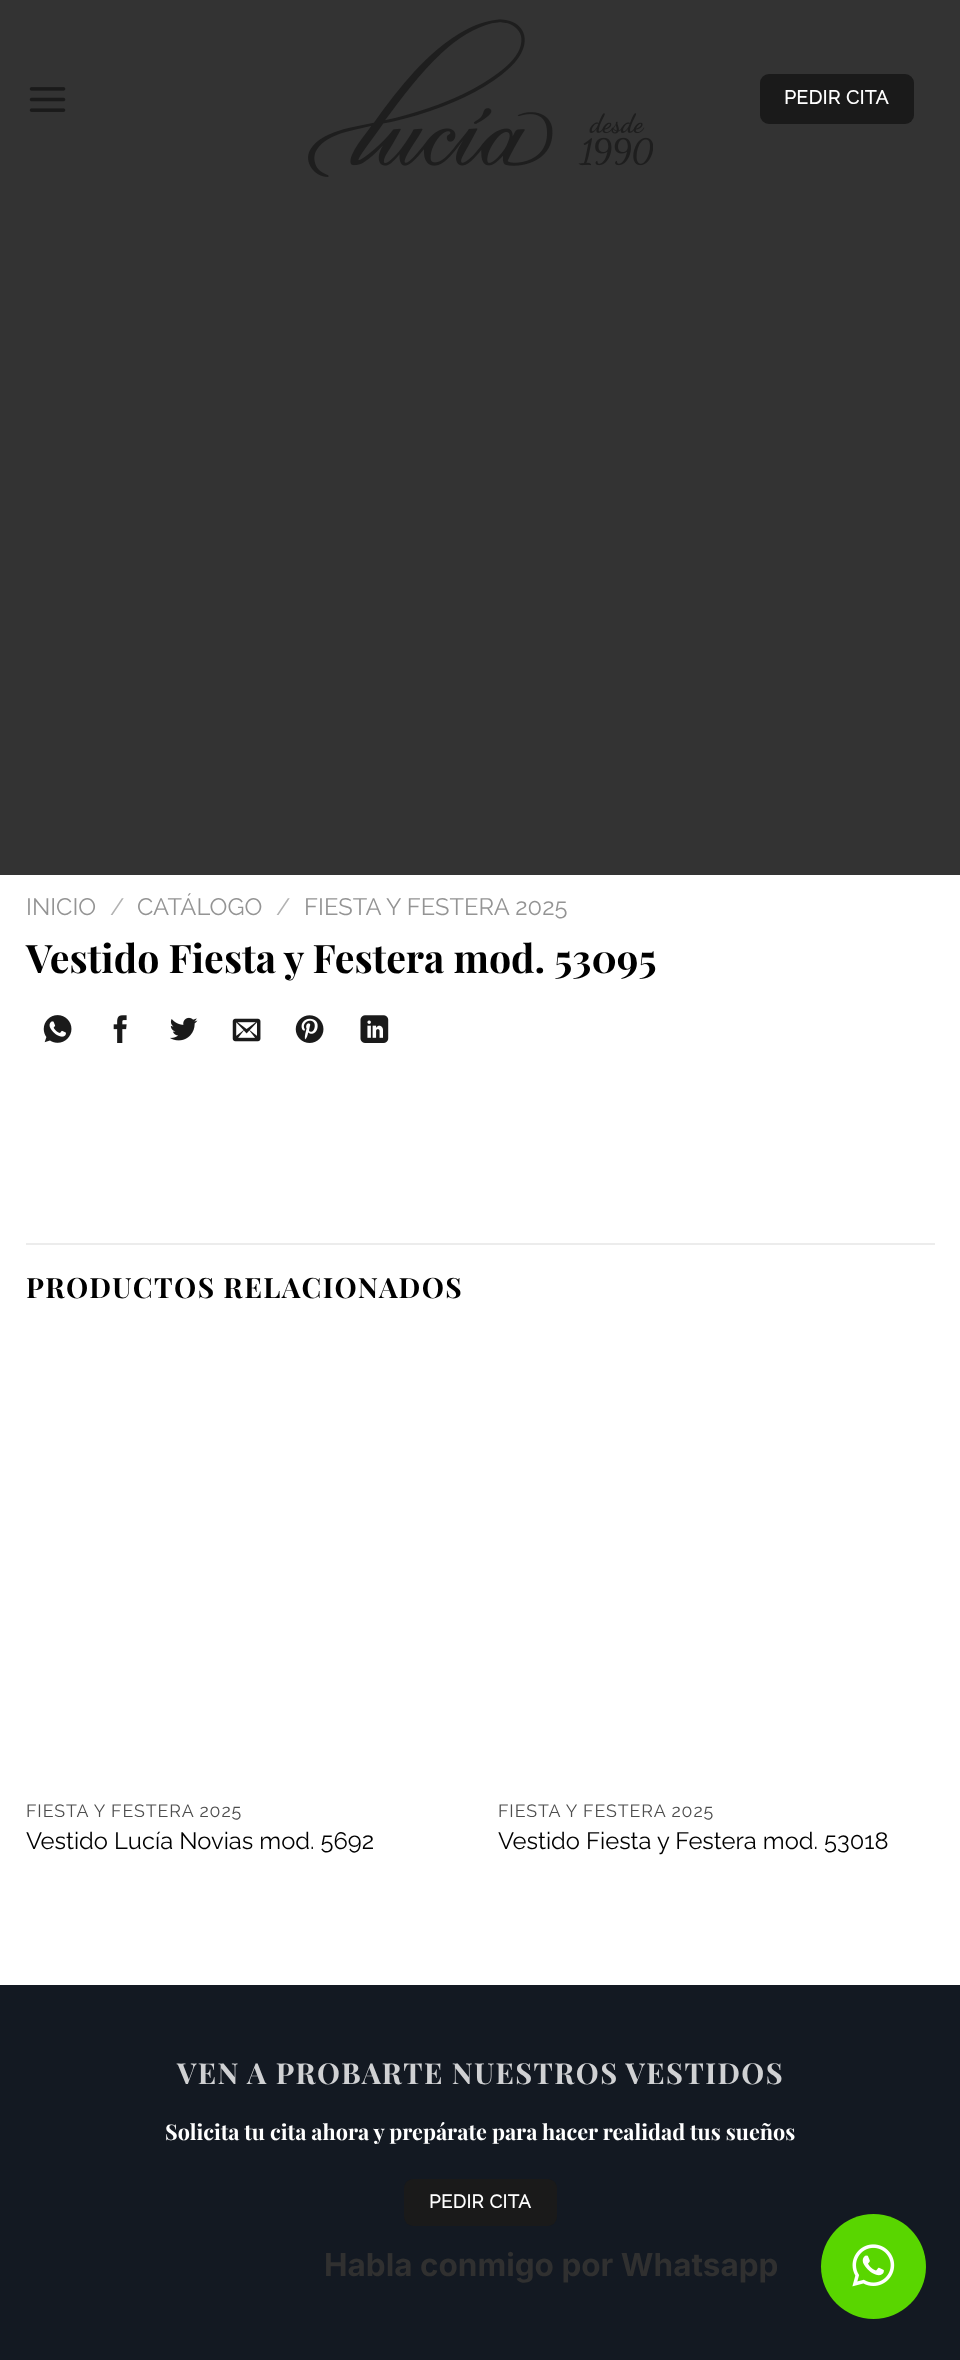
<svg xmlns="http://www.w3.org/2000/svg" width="960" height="2360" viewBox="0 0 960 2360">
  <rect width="100%" height="100%" fill="rgb(255,255,255)"/>
  <rect x="0" y="0" width="960" height="875" fill="rgb(51,51,51)"/>
  <image x="29" y="87" width="37" height="25" href="pic1.png"/>
  <image x="308" y="19" width="345" height="158" href="pic2.png"/>
  <rect x="760" y="74" width="154" height="50" rx="9" fill="rgb(26,26,26)"/>
  <text x="784" y="104" font-family="Raleway" font-size="19" font-weight="bold" letter-spacing="0.5" fill="rgb(255,255,255)">PEDIR CITA</text>
  <text x="26" y="915" font-family="Raleway" font-size="23.75" fill="rgb(148,148,148)">INICIO</text>
  <text x="110" y="915" font-family="Raleway" font-size="23.75" fill="rgb(178,178,178)">/</text>
  <text x="137" y="915" font-family="Raleway" font-size="23.75" fill="rgb(148,148,148)">CATÁLOGO</text>
  <text x="276" y="915" font-family="Raleway" font-size="23.75" fill="rgb(178,178,178)">/</text>
  <text x="304" y="915" font-family="Raleway" font-size="23.75" fill="rgb(148,148,148)">FIESTA Y FESTERA 2025</text>
  <text x="26" y="973" font-family="Playfair Display" font-size="39.25" font-weight="bold" fill="rgb(0,0,0)">Vestido Fiesta y Festera mod. 53095</text>
  <image x="43" y="1015" width="29" height="28" href="pic3.png"/>
  <image x="113" y="1015" width="14" height="28" href="pic4.png"/>
  <image x="170" y="1017" width="28" height="24" href="pic5.png"/>
  <image x="232" y="1018" width="29" height="24" href="pic6.png"/>
  <image x="295" y="1015" width="29" height="28" href="pic7.png"/>
  <image x="360" y="1015" width="29" height="28" href="pic8.png"/>
  <rect x="26" y="1243" width="909" height="2" fill="rgb(236,236,236)"/>
  <text x="26" y="1298" font-family="Playfair Display" font-size="28" font-weight="bold" letter-spacing="1.4" fill="rgb(0,0,0)">PRODUCTOS RELACIONADOS</text>
  <text x="26" y="1817" font-family="Raleway" font-size="17.8" letter-spacing="0.9" fill="rgb(77,77,77)">FIESTA Y FESTERA 2025</text>
  <text x="26" y="1849" font-family="Raleway" font-size="23.75" fill="rgb(0,0,0)">Vestido Lucía Novias mod. 5692</text>
  <text x="498" y="1817" font-family="Raleway" font-size="17.8" letter-spacing="0.9" fill="rgb(77,77,77)">FIESTA Y FESTERA 2025</text>
  <text x="498" y="1849" font-family="Raleway" font-size="23.75" fill="rgb(0,0,0)">Vestido Fiesta y Festera mod. 53018</text>
  <rect x="0" y="1985" width="960" height="375" fill="rgb(19,25,34)"/>
  <text x="177" y="2084" font-family="Playfair Display" font-size="28.9" font-weight="bold" letter-spacing="1.45" fill="rgb(208,209,211)">VEN A PROBARTE NUESTROS VESTIDOS</text>
  <text x="165" y="2140" font-family="Playfair Display" font-size="21.65" font-weight="bold" fill="rgb(255,255,255)">Solicita tu cita ahora y prepárate para hacer realidad tus sueños</text>
  <rect x="404" y="2179" width="153" height="47" rx="9" fill="rgb(26,26,26)"/>
  <text x="429" y="2208" font-family="Raleway" font-size="18.5" font-weight="bold" letter-spacing="0.5" fill="rgb(255,255,255)">PEDIR CITA</text>
  <circle cx="873.5" cy="2266.5" r="52.5" fill="rgb(89,214,0)"/>
  <text x="324" y="2276" font-family="Inter" font-size="31.5" font-weight="bold" fill="rgb(48,48,48)">Habla conmigo por Whatsapp</text>
  <image x="852" y="2244" width="43" height="43" href="pic9.png"/>
</svg>
